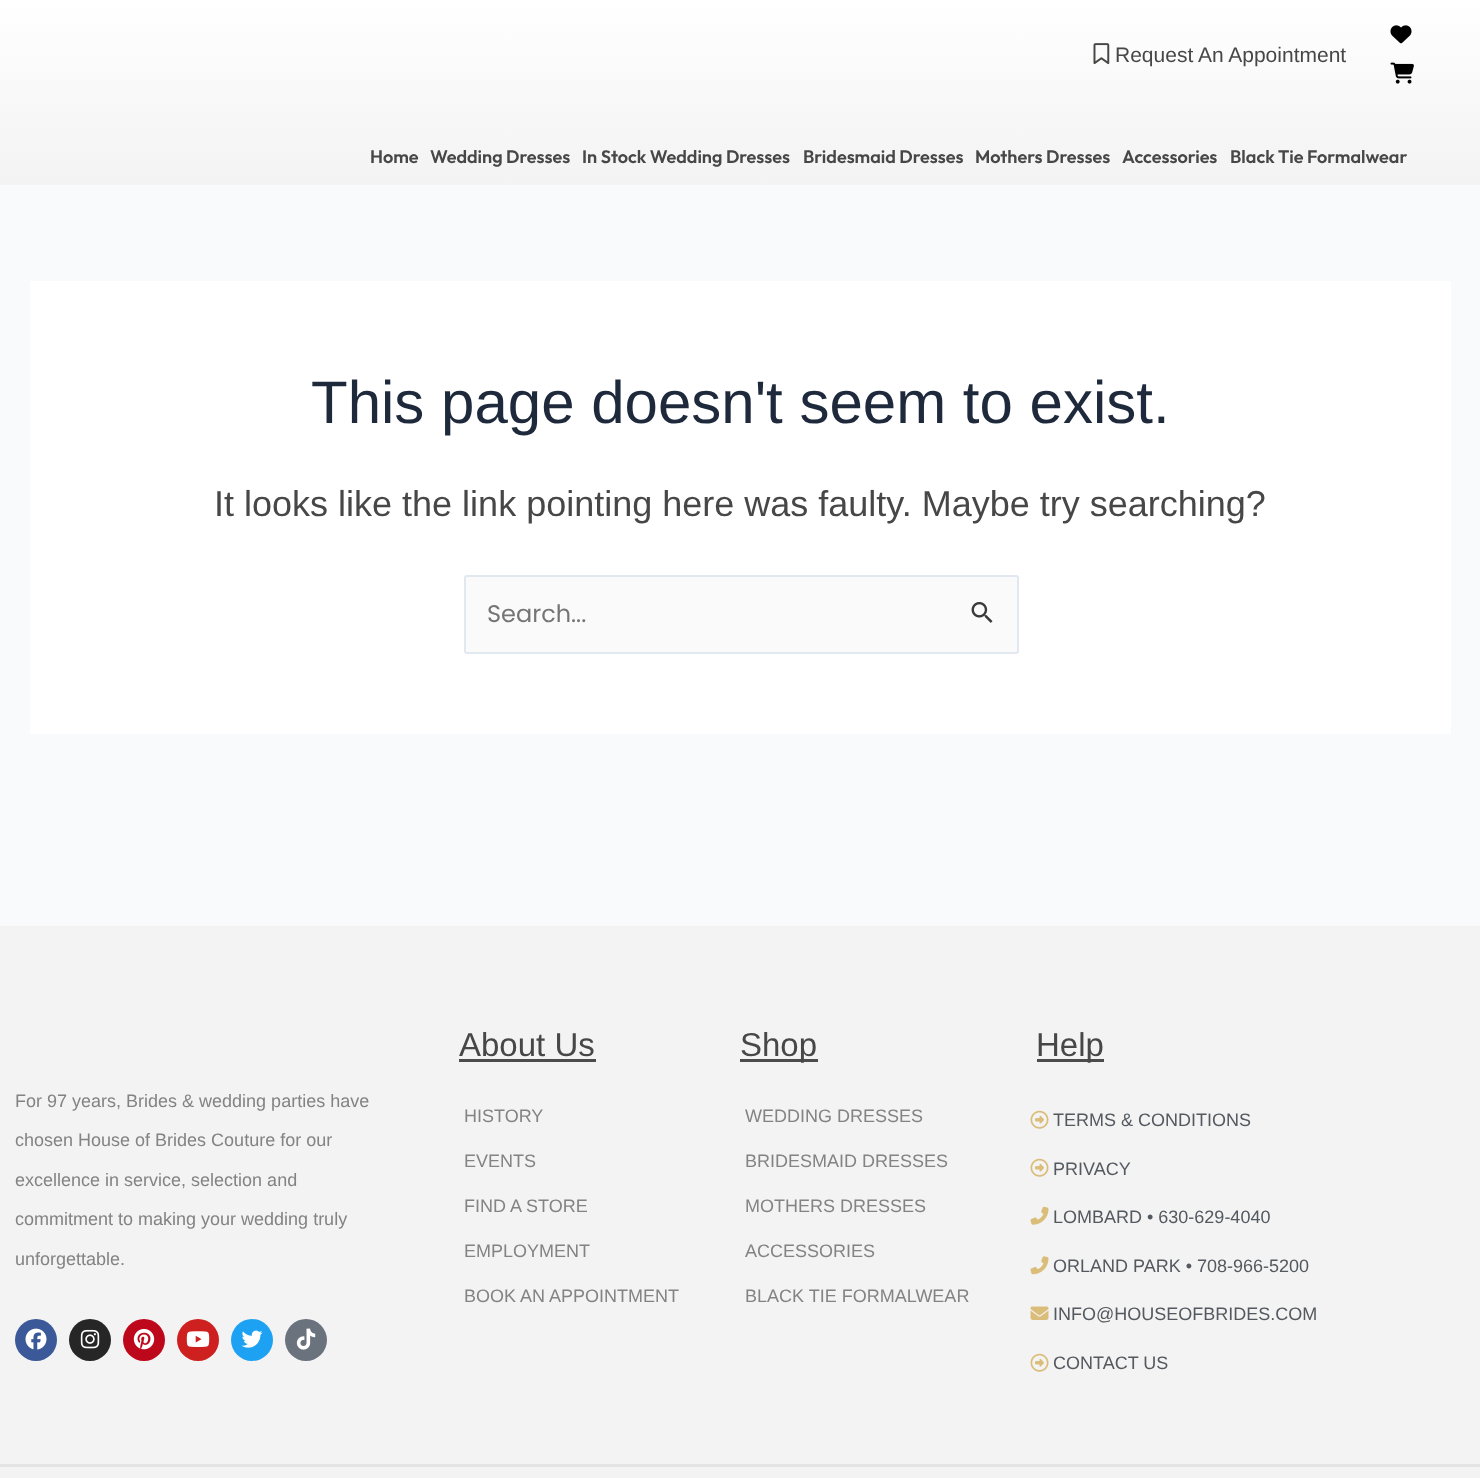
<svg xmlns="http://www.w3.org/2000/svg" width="1480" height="1478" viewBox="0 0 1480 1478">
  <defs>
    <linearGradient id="g1" gradientUnits="userSpaceOnUse" x1="740" y1="0" x2="740" y2="185"><stop offset="0" stop-color="rgb(255,255,255)"/><stop offset="1" stop-color="rgb(243,243,243)"/></linearGradient>
  </defs>
  <rect width="100%" height="100%" fill="rgb(249,250,251)"/>
  <rect x="0" y="0" width="1480" height="185" fill="url(#g1)"/>
  <image x="1093" y="43" width="17" height="22" href="pic1.png"/>
  <text x="1115" y="62" font-family="Liberation Sans" font-size="21" fill="rgb(72,71,71)">Request An Appointment</text>
  <image x="1390" y="25" width="22" height="19" href="pic2.png"/>
  <image x="1390" y="62" width="24" height="22" href="pic3.png"/>
  <g font-family="Outfit" font-size="18" font-weight="100" fill="rgb(72,71,71)">
    <text x="370" y="163">Home</text>
    <text x="430" y="163">Wedding Dresses</text>
    <text x="582" y="163">In Stock Wedding Dresses</text>
    <text x="803" y="163">Bridesmaid Dresses</text>
    <text x="975" y="163">Mothers Dresses</text>
    <text x="1122" y="163">Accessories</text>
    <text x="1230" y="163">Black Tie Formalwear</text>
  </g>
  <rect x="30" y="281" width="1421" height="453" fill="rgb(255,255,255)"/>
  <text x="311" y="423" font-family="Liberation Sans" font-size="60" fill="rgb(30,41,59)">This page doesn't seem to exist.</text>
  <text x="214" y="516" font-family="Liberation Sans" font-size="36" fill="rgb(72,71,71)">It looks like the link pointing here was faulty. Maybe try searching?</text>
  <rect x="465" y="576" width="553" height="77" rx="2" fill="rgb(250,250,250)" stroke="rgb(226,232,240)" stroke-width="2"/>
  <text x="487" y="622" font-family="Poppins" font-size="24" fill="rgb(117,117,117)">Search...</text>
  <image x="971" y="602" width="22" height="21" href="pic4.png"/>
  <rect x="0" y="926" width="1480" height="552" fill="rgb(243,243,243)"/>
  <g font-family="Liberation Sans" font-size="18" fill="rgb(131,131,131)">
    <text x="15" y="1107">For 97 years, Brides &amp; wedding parties have</text>
    <text x="15" y="1146">chosen House of Brides Couture for our</text>
    <text x="15" y="1186">excellence in service, selection and</text>
    <text x="15" y="1225">commitment to making your wedding truly</text>
    <text x="15" y="1265">unforgettable.</text>
  </g>
  <circle cx="36" cy="1340" r="21" fill="rgb(59,89,152)"/>
  <image x="25" y="1328" width="22" height="22" href="pic5.png"/>
  <circle cx="90" cy="1340" r="21" fill="rgb(38,38,38)"/>
  <image x="80" y="1329" width="20" height="20" href="pic6.png"/>
  <circle cx="144" cy="1340" r="21" fill="rgb(189,8,28)"/>
  <image x="133" y="1329" width="22" height="21" href="pic7.png"/>
  <circle cx="198" cy="1340" r="21" fill="rgb(205,32,31)"/>
  <image x="186" y="1331" width="24" height="16" href="pic8.png"/>
  <circle cx="252" cy="1340" r="21" fill="rgb(29,161,242)"/>
  <image x="241" y="1330" width="22" height="18" href="pic9.png"/>
  <circle cx="306" cy="1340" r="21" fill="rgb(105,114,125)"/>
  <image x="296" y="1328" width="20" height="22" href="pic10.png"/>
  <text x="459" y="1056" font-family="Liberation Sans" font-size="33" fill="rgb(72,71,71)">About Us</text>
  <rect x="459" y="1059" width="137" height="3" fill="rgb(76,76,76)"/>
  <g font-family="Liberation Sans" font-size="18" fill="rgb(131,131,131)">
    <text x="464" y="1122">HISTORY</text>
    <text x="464" y="1167">EVENTS</text>
    <text x="464" y="1212">FIND A STORE</text>
    <text x="464" y="1257">EMPLOYMENT</text>
    <text x="464" y="1302">BOOK AN APPOINTMENT</text>
  </g>
  <rect x="740" y="1059" width="78" height="3" fill="rgb(76,76,76)"/>
  <text x="740" y="1056" font-family="Liberation Sans" font-size="33" fill="rgb(72,71,71)">Shop</text>
  <g font-family="Liberation Sans" font-size="18" fill="rgb(131,131,131)">
    <text x="745" y="1122">WEDDING DRESSES</text>
    <text x="745" y="1167">BRIDESMAID DRESSES</text>
    <text x="745" y="1212">MOTHERS DRESSES</text>
    <text x="745" y="1257">ACCESSORIES</text>
    <text x="745" y="1302">BLACK TIE FORMALWEAR</text>
  </g>
  <rect x="1037" y="1059" width="67" height="3" fill="rgb(76,76,76)"/>
  <text x="1036" y="1056" font-family="Liberation Sans" font-size="33" fill="rgb(72,71,71)">Help</text>
  <image x="1030" y="1110" width="19" height="19" href="pic11.png"/>
  <text x="1053" y="1126" font-family="Liberation Sans" font-size="18" fill="rgb(84,89,95)">TERMS &amp; CONDITIONS</text>
  <image x="1030" y="1158" width="19" height="19" href="pic11.png"/>
  <text x="1053" y="1175" font-family="Liberation Sans" font-size="18" fill="rgb(84,89,95)">PRIVACY</text>
  <image x="1030" y="1206" width="19" height="19" href="pic12.png"/>
  <text x="1053" y="1223" font-family="Liberation Sans" font-size="18" fill="rgb(84,89,95)">LOMBARD • 630-629-4040</text>
  <image x="1030" y="1256" width="19" height="19" href="pic13.png"/>
  <text x="1053" y="1272" font-family="Liberation Sans" font-size="18" fill="rgb(84,89,95)">ORLAND PARK • 708-966-5200</text>
  <image x="1030" y="1306" width="19" height="14" href="pic14.png"/>
  <text x="1053" y="1320" font-family="Liberation Sans" font-size="18" fill="rgb(84,89,95)">INFO@HOUSEOFBRIDES.COM</text>
  <image x="1030" y="1353" width="19" height="19" href="pic11.png"/>
  <text x="1053" y="1369" font-family="Liberation Sans" font-size="18" fill="rgb(84,89,95)">CONTACT US</text>
  <rect x="0" y="1464" width="1480" height="3" fill="rgb(228,228,228)"/>
</svg>
